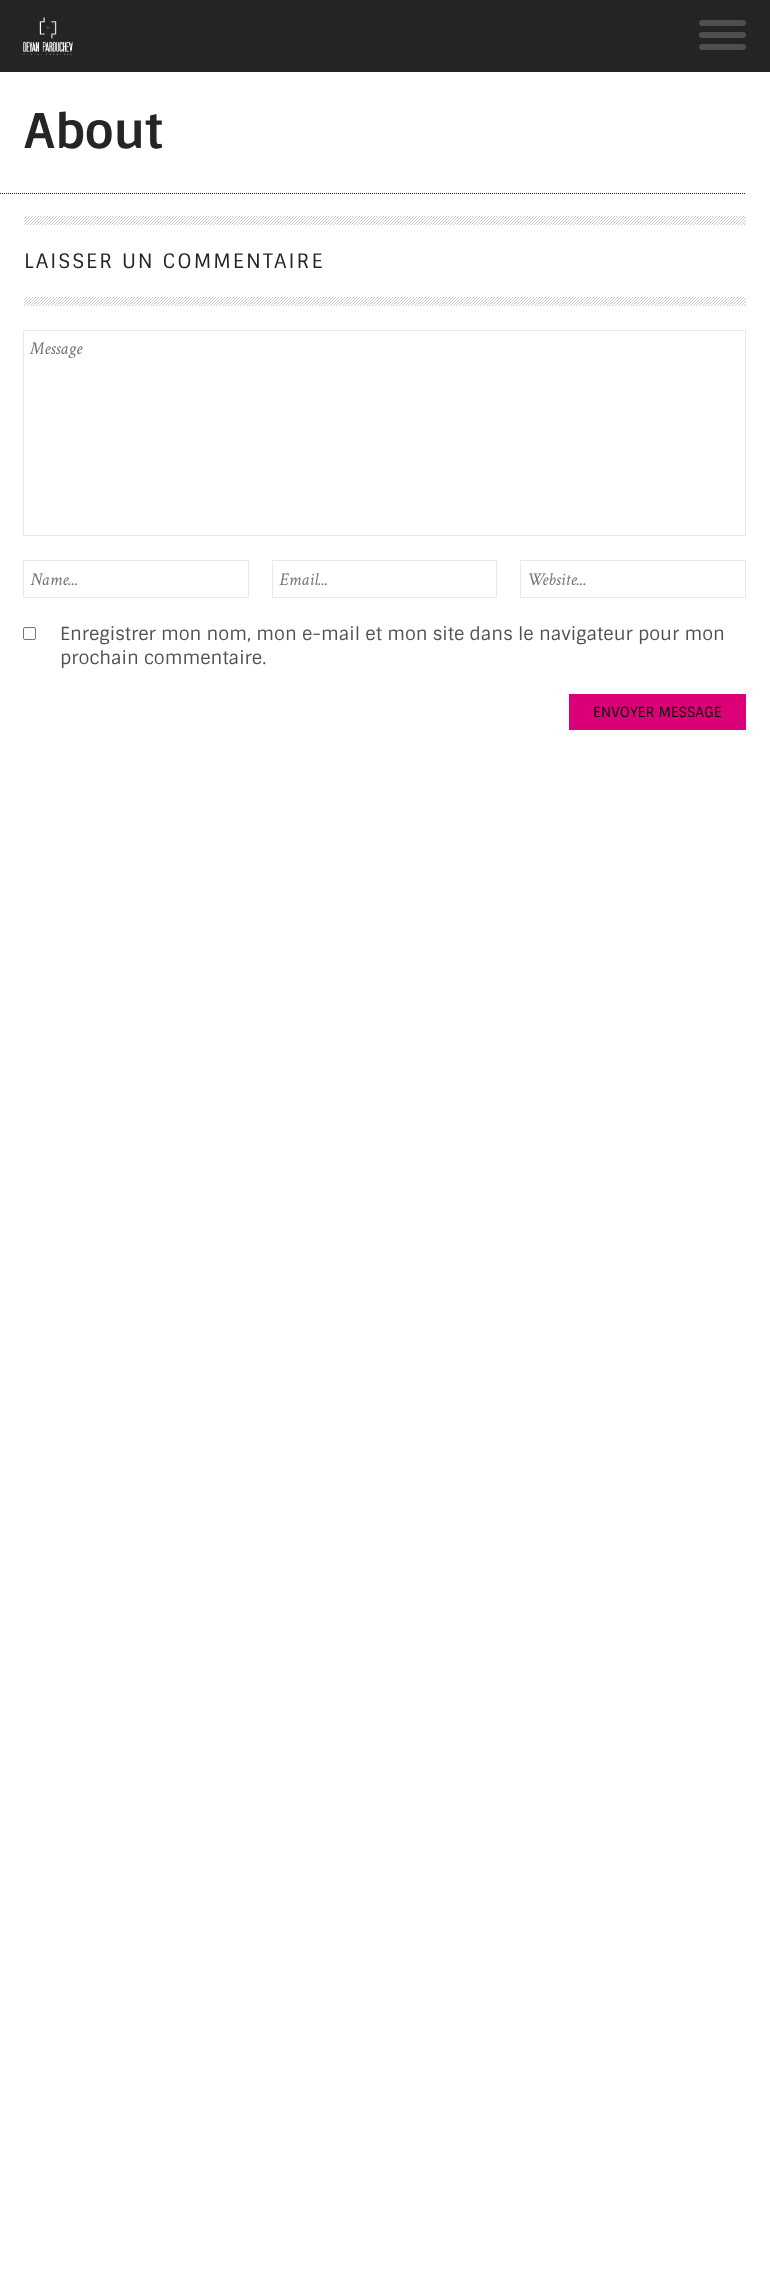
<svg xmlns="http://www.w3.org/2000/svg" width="770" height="2285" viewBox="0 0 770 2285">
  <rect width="100%" height="100%" fill="rgb(255,255,255)"/>
  <rect x="0" y="0" width="770" height="72" fill="rgb(36,36,35)"/>
  <image x="23" y="17" width="50" height="39" href="pic1.png"/>
  <rect x="699" y="32" width="47" height="6" rx="3" fill="rgb(78,78,77)"/>
  <rect x="699" y="20" width="47" height="6" rx="3" fill="rgb(78,78,77)"/>
  <rect x="699" y="44" width="47" height="6" rx="3" fill="rgb(78,78,77)"/>
  <text x="24" y="148" font-family="Sintony" font-size="48" font-weight="bold" fill="rgb(38,37,38)">About</text>
  <path d="M-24 193.5H746" fill="none" stroke="rgb(36,36,35)" stroke-dasharray="1 1"/>
  <image x="24" y="216" width="722" height="9" href="pic2.png"/>
  <text x="24" y="268" font-family="Sintony" font-size="20" letter-spacing="2" fill="rgb(38,37,38)">LAISSER UN COMMENTAIRE</text>
  <image x="24" y="297" width="722" height="9" href="pic2.png"/>
  <rect x="23.5" y="330.5" width="722" height="205" fill="none" stroke="rgb(229,233,235)"/>
  <text x="30" y="354" font-family="Crimson Text" font-size="18" font-style="italic" fill="rgb(117,117,117)">Message</text>
  <rect x="23.5" y="560.5" width="225" height="37" fill="none" stroke="rgb(229,233,235)"/>
  <text x="30" y="585" font-family="Crimson Text" font-size="18" font-style="italic" fill="rgb(117,117,117)">Name...</text>
  <rect x="272.5" y="560.5" width="224" height="37" fill="none" stroke="rgb(229,233,235)"/>
  <text x="279" y="585" font-family="Crimson Text" font-size="18" font-style="italic" fill="rgb(117,117,117)">Email...</text>
  <rect x="520.5" y="560.5" width="225" height="37" fill="none" stroke="rgb(229,233,235)"/>
  <text x="527" y="585" font-family="Crimson Text" font-size="18" font-style="italic" fill="rgb(117,117,117)">Website...</text>
  <rect x="23.5" y="627.5" width="12" height="12" rx="1.5" fill="none" stroke="rgb(118,118,118)"/>
  <g font-family="Sintony" font-size="18" fill="rgb(81,81,80)">
    <text>
      <tspan x="60" y="640">Enregistrer mon nom, mon e-mail et mon site dans le navigateur pour mon</tspan>
      <tspan x="60" y="664">prochain commentaire.</tspan>
    </text>
  </g>
  <rect x="569" y="694" width="177" height="36" fill="rgb(219,0,120)"/>
  <text x="593" y="717" font-family="Sintony" font-size="14" fill="rgb(0,0,0)">ENVOYER MESSAGE</text>
</svg>
